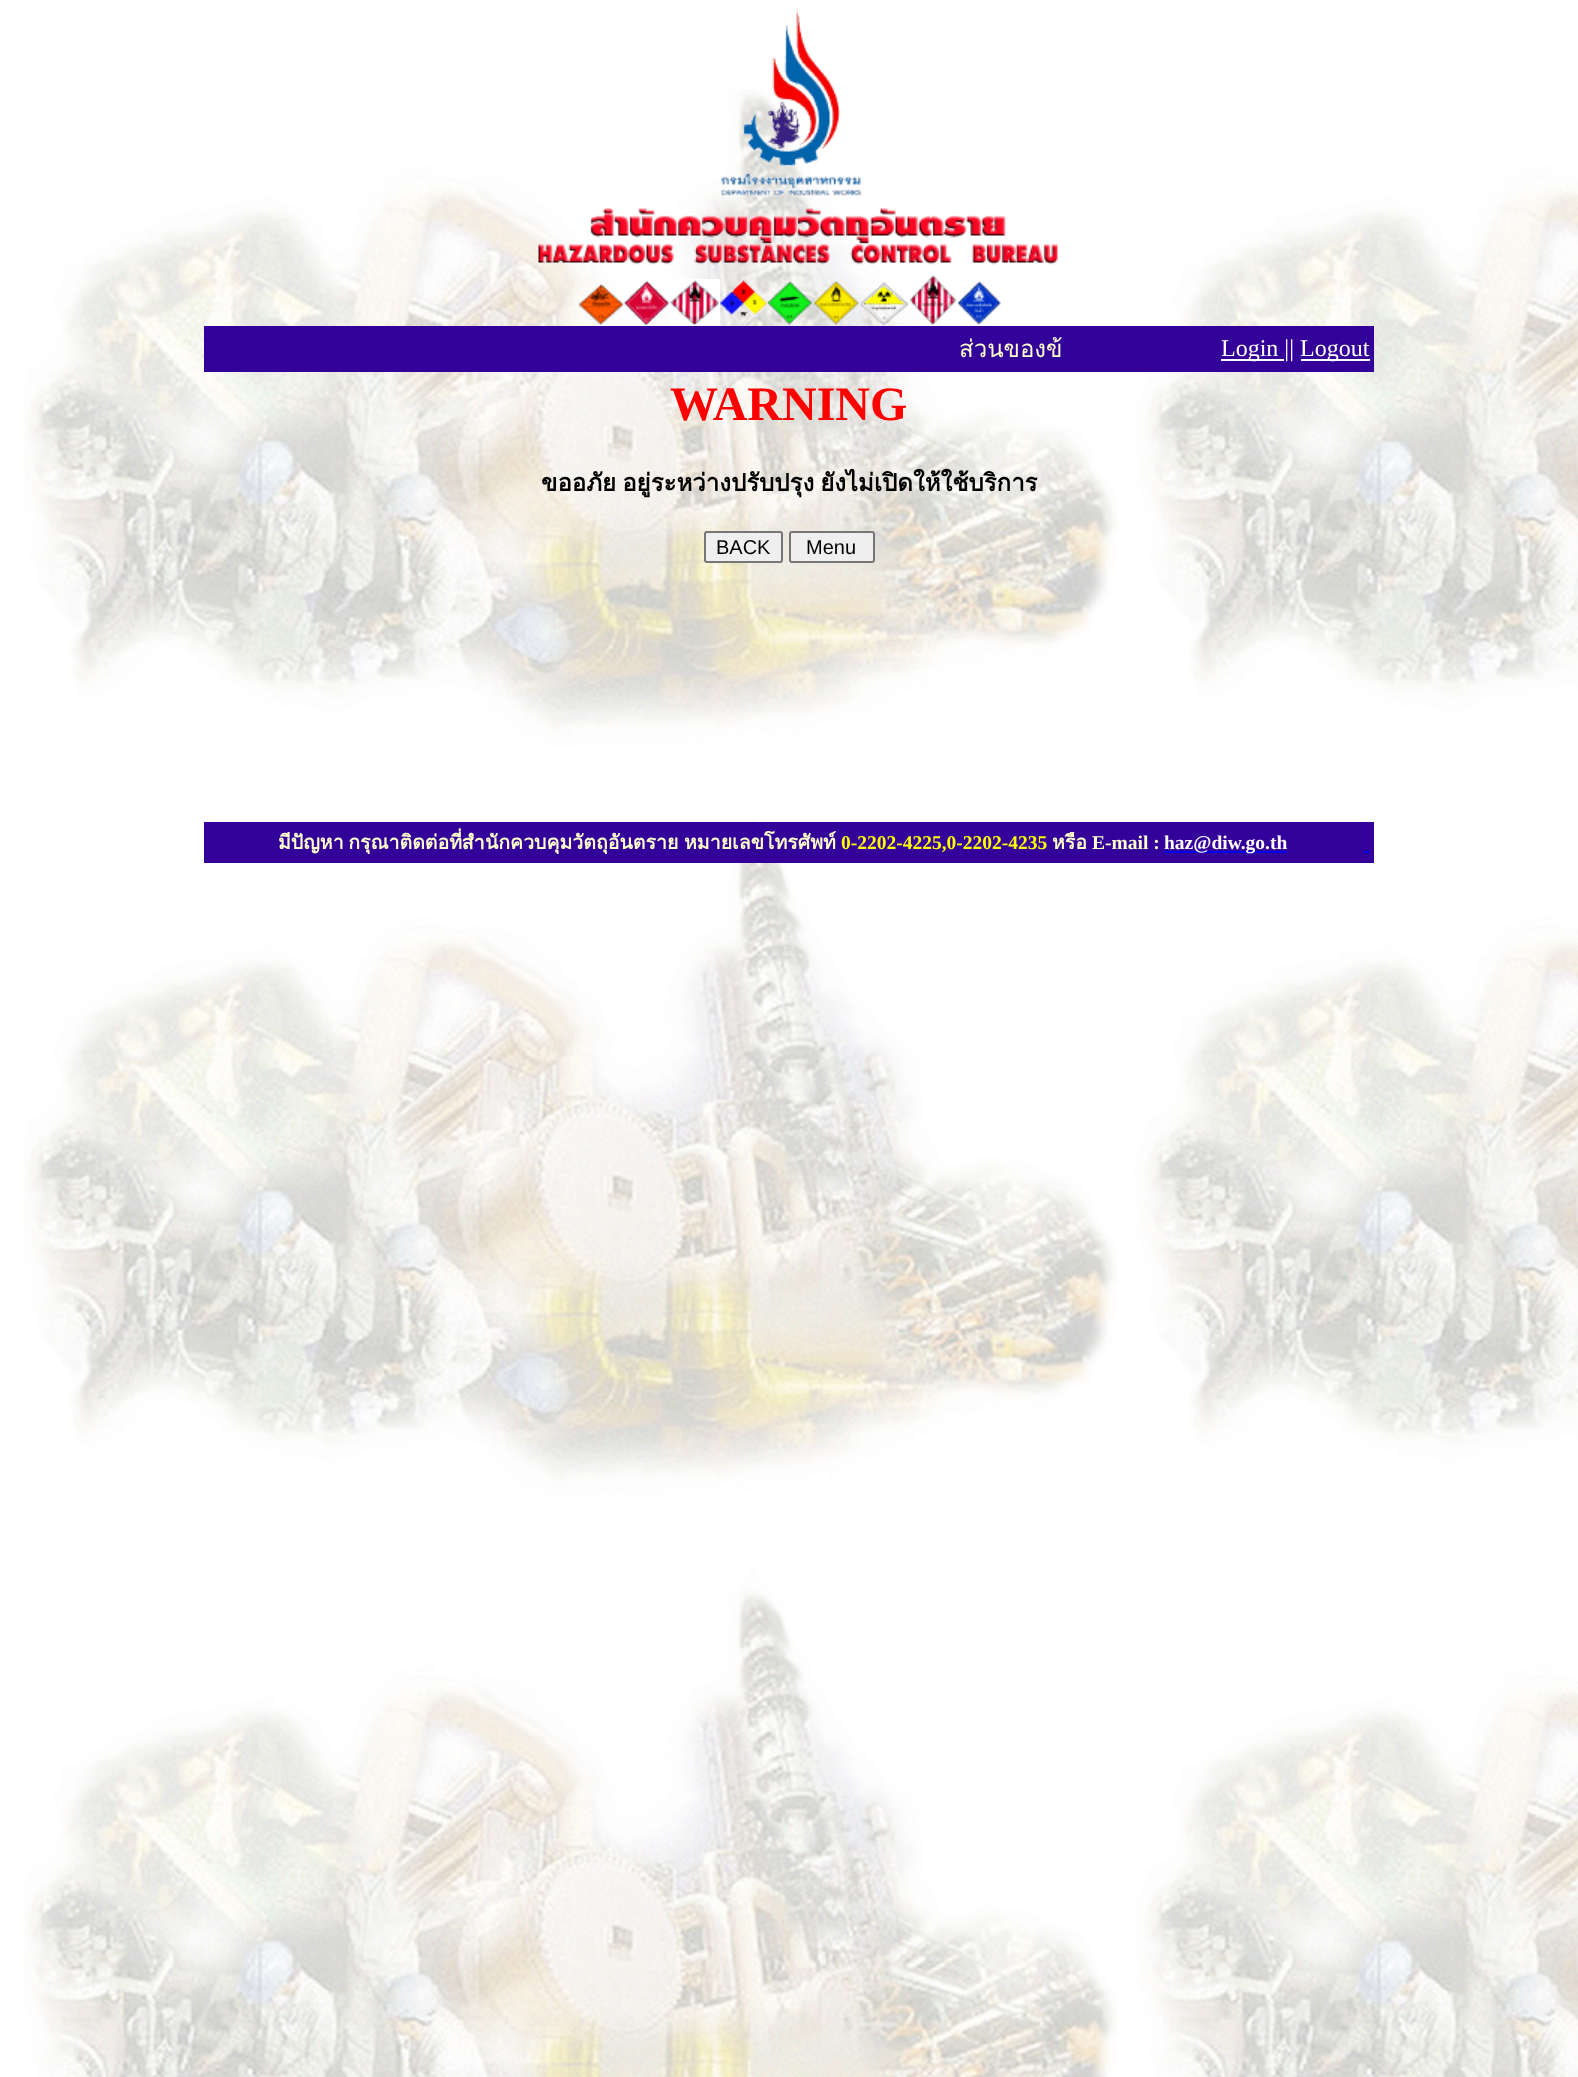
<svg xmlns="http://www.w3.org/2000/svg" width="1578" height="2077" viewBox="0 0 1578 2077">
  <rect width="100%" height="100%" fill="rgb(255,255,255)"/>
  <image x="23" y="89" width="1555" height="1988" href="pic1.png"/>
  <image x="721" y="9" width="141" height="187" href="pic2.png"/>
  <image x="538" y="208" width="520" height="57" href="pic3.png"/>
  <image x="578" y="283" width="46" height="42" href="pic4.png"/>
  <image x="624" y="280" width="45" height="46" href="pic5.png"/>
  <image x="670" y="279" width="50" height="47" href="pic6.png"/>
  <image x="720" y="280" width="47" height="46" href="pic7.png"/>
  <image x="767" y="281" width="45" height="44" href="pic8.png"/>
  <image x="813" y="280" width="46" height="46" href="pic9.png"/>
  <image x="859" y="282" width="50" height="44" href="pic10.png"/>
  <image x="909" y="275" width="48" height="50" href="pic11.png"/>
  <image x="957" y="281" width="44" height="44" href="pic12.png"/>
  <rect x="204" y="326" width="1170" height="46" fill="rgb(51,0,153)"/>
  <text x="959" y="357" font-family="Loma" font-size="24" fill="rgb(255,255,204)">ส่วนของข้</text>
  <rect x="1221" y="359" width="63" height="2" fill="rgb(255,255,255)"/>
  <text x="1221" y="356" font-family="Liberation Serif" font-size="24" fill="rgb(255,255,255)">Login ||</text>
  <rect x="1301" y="359" width="69" height="2" fill="rgb(255,255,255)"/>
  <text x="1300" y="356" font-family="Liberation Serif" font-size="24" fill="rgb(255,255,255)">Logout</text>
  <text x="670" y="420" font-family="Liberation Serif" font-size="48" font-weight="bold" fill="rgb(255,0,0)">WARNING</text>
  <text x="541" y="491" word-spacing="-2" font-family="Loma" font-size="24" font-weight="bold" fill="rgb(0,0,0)">ขออภัย อยู่ระหว่างปรับปรุง ยังไม่เปิดให้ใช้บริการ</text>
  <rect x="705" y="532" width="77" height="30" rx="2" fill="rgb(239,239,239)" stroke="rgb(118,118,118)" stroke-width="2"/>
  <text x="716" y="554" font-family="Liberation Sans" font-size="20" fill="rgb(0,0,0)">BACK</text>
  <rect x="790" y="532" width="84" height="30" rx="2" fill="rgb(239,239,239)" stroke="rgb(118,118,118)" stroke-width="2"/>
  <text x="806" y="554" font-family="Liberation Sans" font-size="20" fill="rgb(0,0,0)">Menu</text>
  <rect x="204" y="822" width="1170" height="41" fill="rgb(51,0,153)"/>
  <g font-family="Loma" font-size="19.5" font-weight="bold" fill="rgb(255,255,204)">
    <text x="278" y="849" word-spacing="-2">มีปัญหา กรุณาติดต่อที่สำนักควบคุมวัตถุอันตราย</text>
    <text x="684" y="849">หมายเลขโทรศัพท์</text>
  </g>
  <text x="841" y="849" font-family="Liberation Serif" font-size="19.5" font-weight="bold" fill="rgb(255,255,0)">0-2202-4225,0-2202-4235</text>
  <text x="1052" y="849" font-family="Loma" font-size="19.5" font-weight="bold" fill="rgb(255,255,204)">หรือ</text>
  <text x="1092" y="849" font-family="Liberation Serif" font-size="19.5" font-weight="bold" fill="rgb(255,255,204)">E-mail :</text>
  <rect x="1164" y="851" width="123" height="2" fill="rgb(0,0,238)"/>
  <text x="1164" y="849" font-family="Liberation Serif" font-size="19.5" font-weight="bold" fill="rgb(255,255,255)">haz@diw.go.th</text>
  <rect x="1364" y="851" width="5" height="2" fill="rgb(0,0,238)"/>
</svg>
